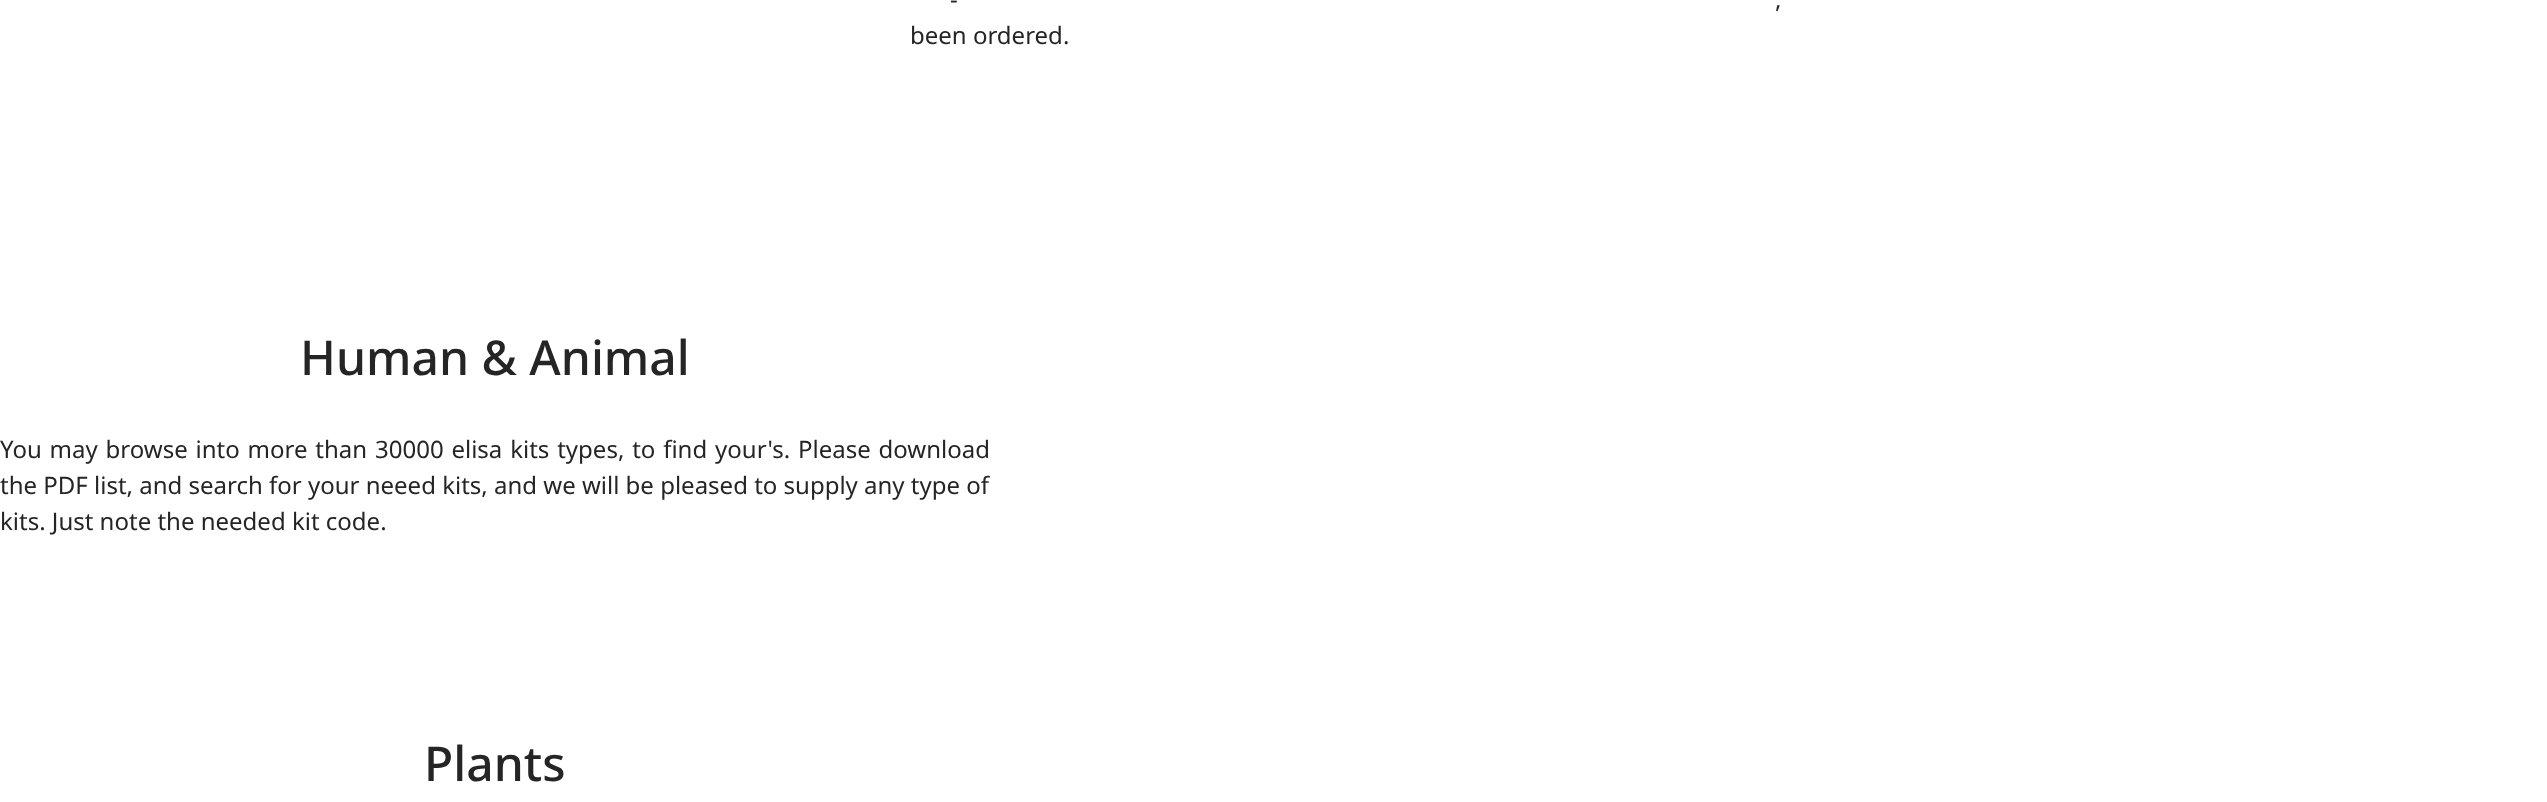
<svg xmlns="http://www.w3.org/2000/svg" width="2547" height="802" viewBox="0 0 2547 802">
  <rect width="100%" height="100%" fill="rgb(255,255,255)"/>
  <g font-family="Noto Sans" font-size="24" fill="rgb(37,37,37)">
    <text x="950" y="8">-</text>
    <text x="1775" y="8">,</text>
    <text x="910" y="44">been ordered.</text>
  </g>
  <text x="300" y="375" font-family="Noto Sans" font-size="48" font-weight="500" fill="rgb(37,37,37)">Human &amp; Animal</text>
  <g font-family="Noto Sans" font-size="24" fill="rgb(37,37,37)">
    <text>
      <tspan x="0" y="458" word-spacing="1.6">You may browse into more than 30000 elisa kits types, to find your's. Please download</tspan>
      <tspan x="0" y="494">the PDF list, and search for your neeed kits, and we will be pleased to supply any type of</tspan>
      <tspan x="0" y="530">kits. Just note the needed kit code.</tspan>
    </text>
  </g>
  <text x="424" y="781" font-family="Noto Sans" font-size="48" font-weight="500" fill="rgb(37,37,37)">Plants</text>
</svg>
